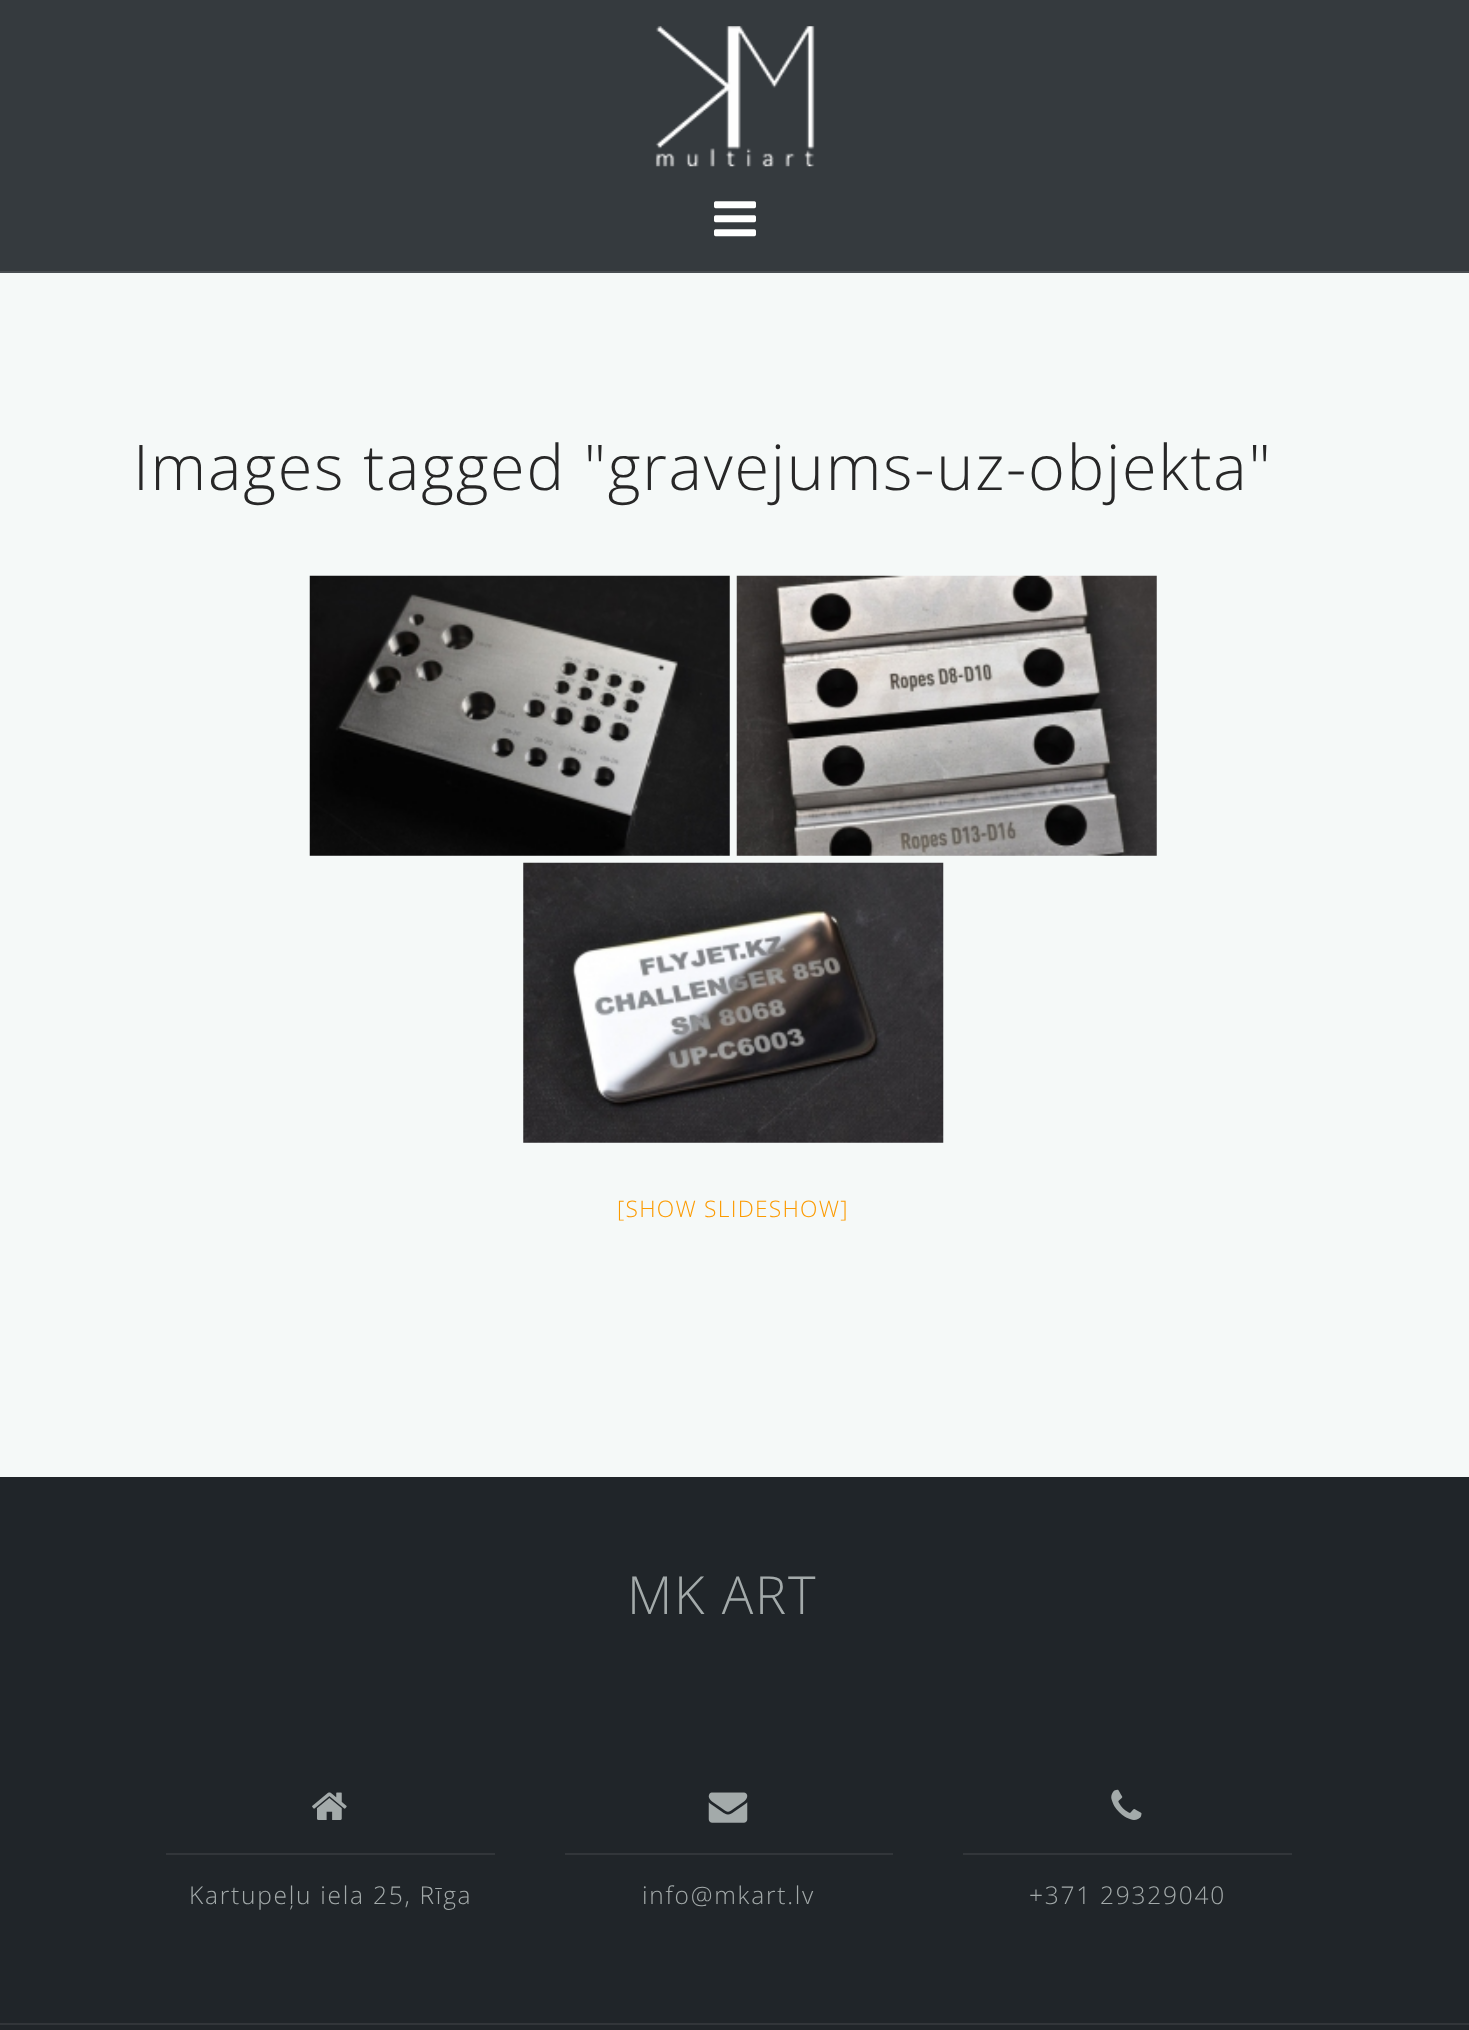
<svg xmlns="http://www.w3.org/2000/svg" width="1469" height="2030" viewBox="0 0 1469 2030">
  <rect width="100%" height="100%" fill="rgb(245,249,248)"/>
  <rect x="0" y="0" width="1469" height="271" fill="rgb(53,58,62)"/>
  <rect x="0" y="271" width="1469" height="2" fill="rgb(73,78,81)"/>
  <image x="655" y="26" width="160" height="141" href="pic1.png"/>
  <image x="714" y="201" width="42" height="36" href="pic2.png"/>
  <text x="133" y="490" font-family="Open Sans" font-size="63" font-weight="300" letter-spacing="1.75" fill="rgb(39,39,39)">Images tagged "gravejums-uz-objekta"</text>
  <image x="309" y="575" width="421" height="281" href="pic3.png"/>
  <image x="736" y="575" width="421" height="281" href="pic4.png"/>
  <image x="523" y="862" width="421" height="281" href="pic5.png"/>
  <text x="617" y="1217" font-family="Open Sans" font-size="22.75" font-weight="300" letter-spacing="1.25" fill="rgb(252,155,0)">[SHOW SLIDESHOW]</text>
  <rect x="0" y="1477" width="1469" height="546" fill="rgb(32,37,41)"/>
  <rect x="0" y="2023" width="1469" height="2" fill="rgb(50,54,58)"/>
  <text x="627" y="1614" font-family="Open Sans" font-size="52.5" font-weight="300" letter-spacing="1.75" fill="rgb(163,170,170)">MK ART</text>
  <image x="312" y="1792" width="35" height="28" href="pic6.png"/>
  <rect x="166" y="1853" width="329" height="2" fill="rgb(50,54,58)"/>
  <text x="189" y="1904" font-family="Open Sans" font-size="24.5" font-weight="300" letter-spacing="1.75" fill="rgb(163,170,170)">Kartupeļu iela 25, Rīga</text>
  <image x="708" y="1792" width="40" height="31" href="pic7.png"/>
  <rect x="565" y="1853" width="328" height="2" fill="rgb(50,54,58)"/>
  <text x="642" y="1904" font-family="Open Sans" font-size="24.5" font-weight="300" letter-spacing="1.75" fill="rgb(163,170,170)">info@mkart.lv</text>
  <image x="1111" y="1789" width="31" height="31" href="pic8.png"/>
  <rect x="963" y="1853" width="329" height="2" fill="rgb(50,54,58)"/>
  <text x="1029" y="1904" font-family="Open Sans" font-size="24.5" font-weight="300" letter-spacing="1.75" fill="rgb(163,170,170)">+371 29329040</text>
  <rect x="0" y="2025" width="1469" height="5" fill="rgb(32,37,41)"/>
</svg>
